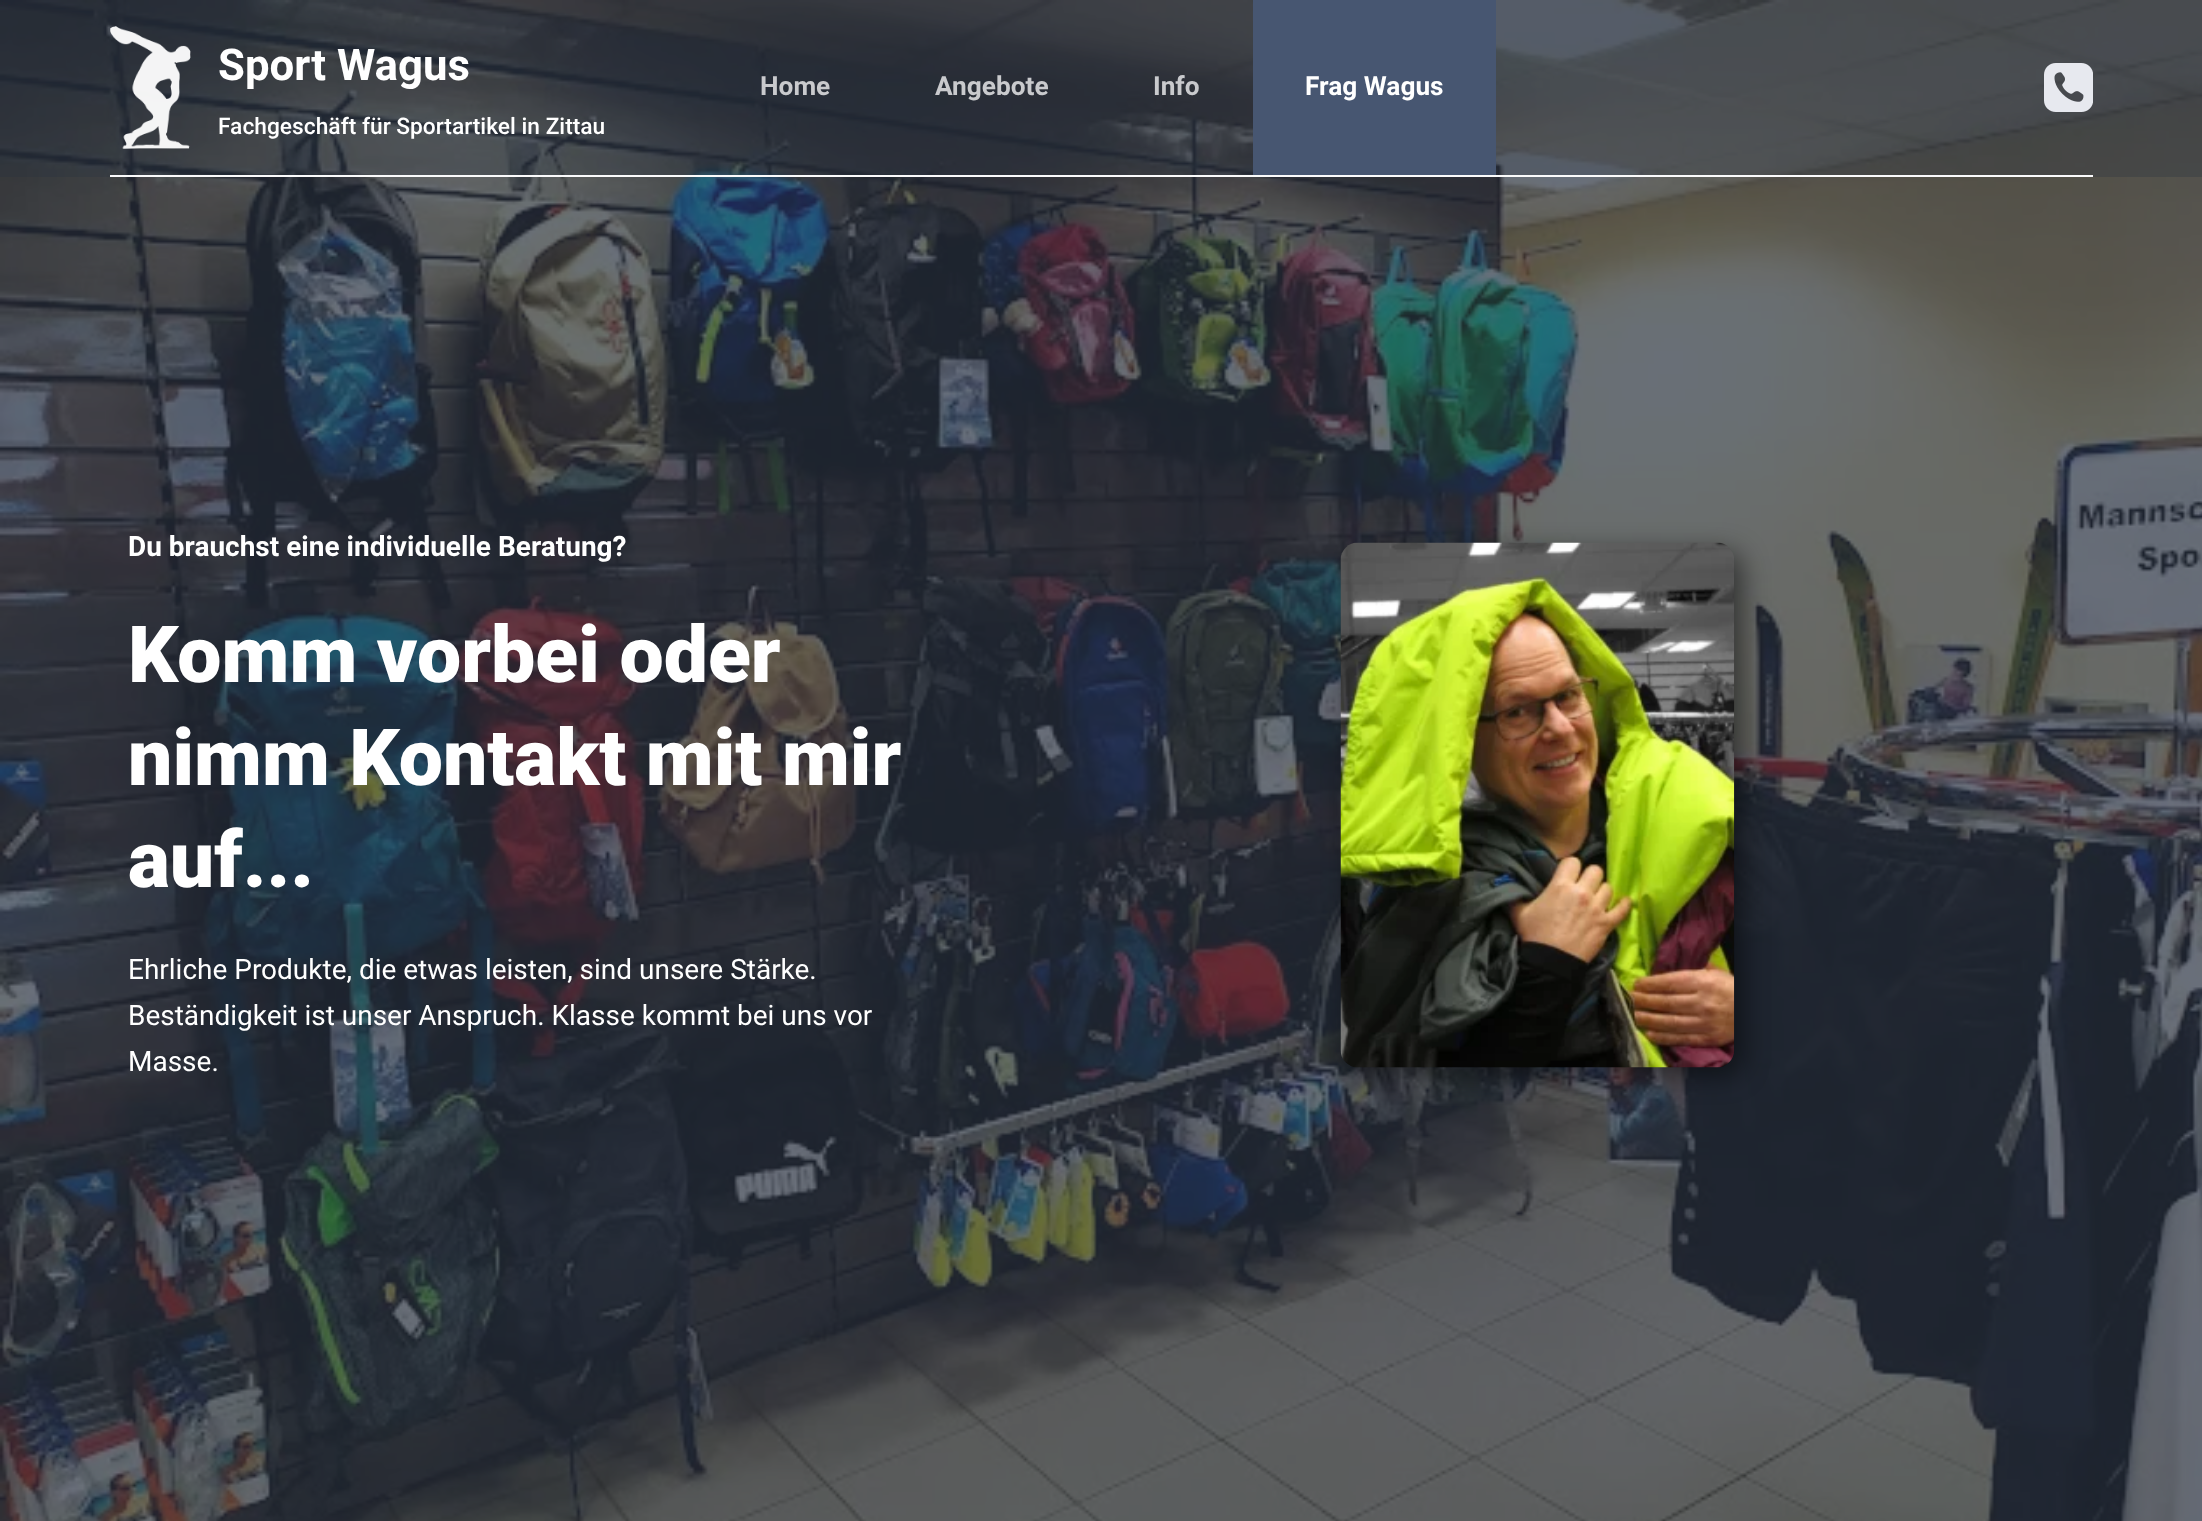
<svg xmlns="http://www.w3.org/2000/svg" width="2202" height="1521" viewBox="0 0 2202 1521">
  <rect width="100%" height="100%" fill="rgb(255,255,255)"/>
  <image x="0" y="0" width="2202" height="1521" href="pic3.png"/>
  <rect x="0" y="0" width="2202" height="177" fill="rgba(40,49,64,0.3)"/>
  <rect x="110" y="175" width="1983" height="2" fill="rgb(251,251,252)"/>
  <image x="110" y="26" width="81" height="123" href="pic1.png"/>
  <text x="218" y="80" font-family="Roboto" font-size="43.75" font-weight="bold" fill="rgb(255,255,255)">Sport Wagus</text>
  <text x="218" y="134" font-family="Roboto" font-size="22.75" font-weight="500" fill="rgb(255,255,255)">Fachgeschäft für Sportartikel in Zittau</text>
  <g font-family="Roboto" font-size="26.25" font-weight="bold" fill="rgb(201,202,205)">
    <text x="760" y="95">Home</text>
    <text x="935" y="95">Angebote</text>
    <text x="1153" y="95">Info</text>
  </g>
  <rect x="1253" y="0" width="243" height="175" fill="rgb(71,86,113)"/>
  <text x="1305" y="95" font-family="Roboto" font-size="26.25" font-weight="bold" fill="rgb(255,255,255)">Frag Wagus</text>
  <image x="2044" y="63" width="49" height="49" href="pic2.png"/>
  <text x="128" y="556" font-family="Roboto" font-size="28" font-weight="bold" fill="rgb(255,255,255)">Du brauchst eine individuelle Beratung?</text>
  <g font-family="Roboto" font-size="78.75" font-weight="900" fill="rgb(255,255,255)">
    <text>
      <tspan x="128" y="682">Komm vorbei oder</tspan>
      <tspan x="128" y="785">nimm Kontakt mit mir</tspan>
      <tspan x="128" y="887">auf...</tspan>
    </text>
  </g>
  <g font-family="Roboto" font-size="28" fill="rgb(255,255,255)">
    <text>
      <tspan x="128" y="979">Ehrliche Produkte, die etwas leisten, sind unsere Stärke.</tspan>
      <tspan x="128" y="1025">Beständigkeit ist unser Anspruch. Klasse kommt bei uns vor</tspan>
      <tspan x="128" y="1071">Masse.</tspan>
    </text>
  </g>
  <rect x="1349" y="551" width="394" height="525" rx="18" fill="rgba(0,0,0,0.5)" filter="blur(13px)"/>
  <image x="1340" y="542" width="395" height="526" href="pic4.png"/>
</svg>
